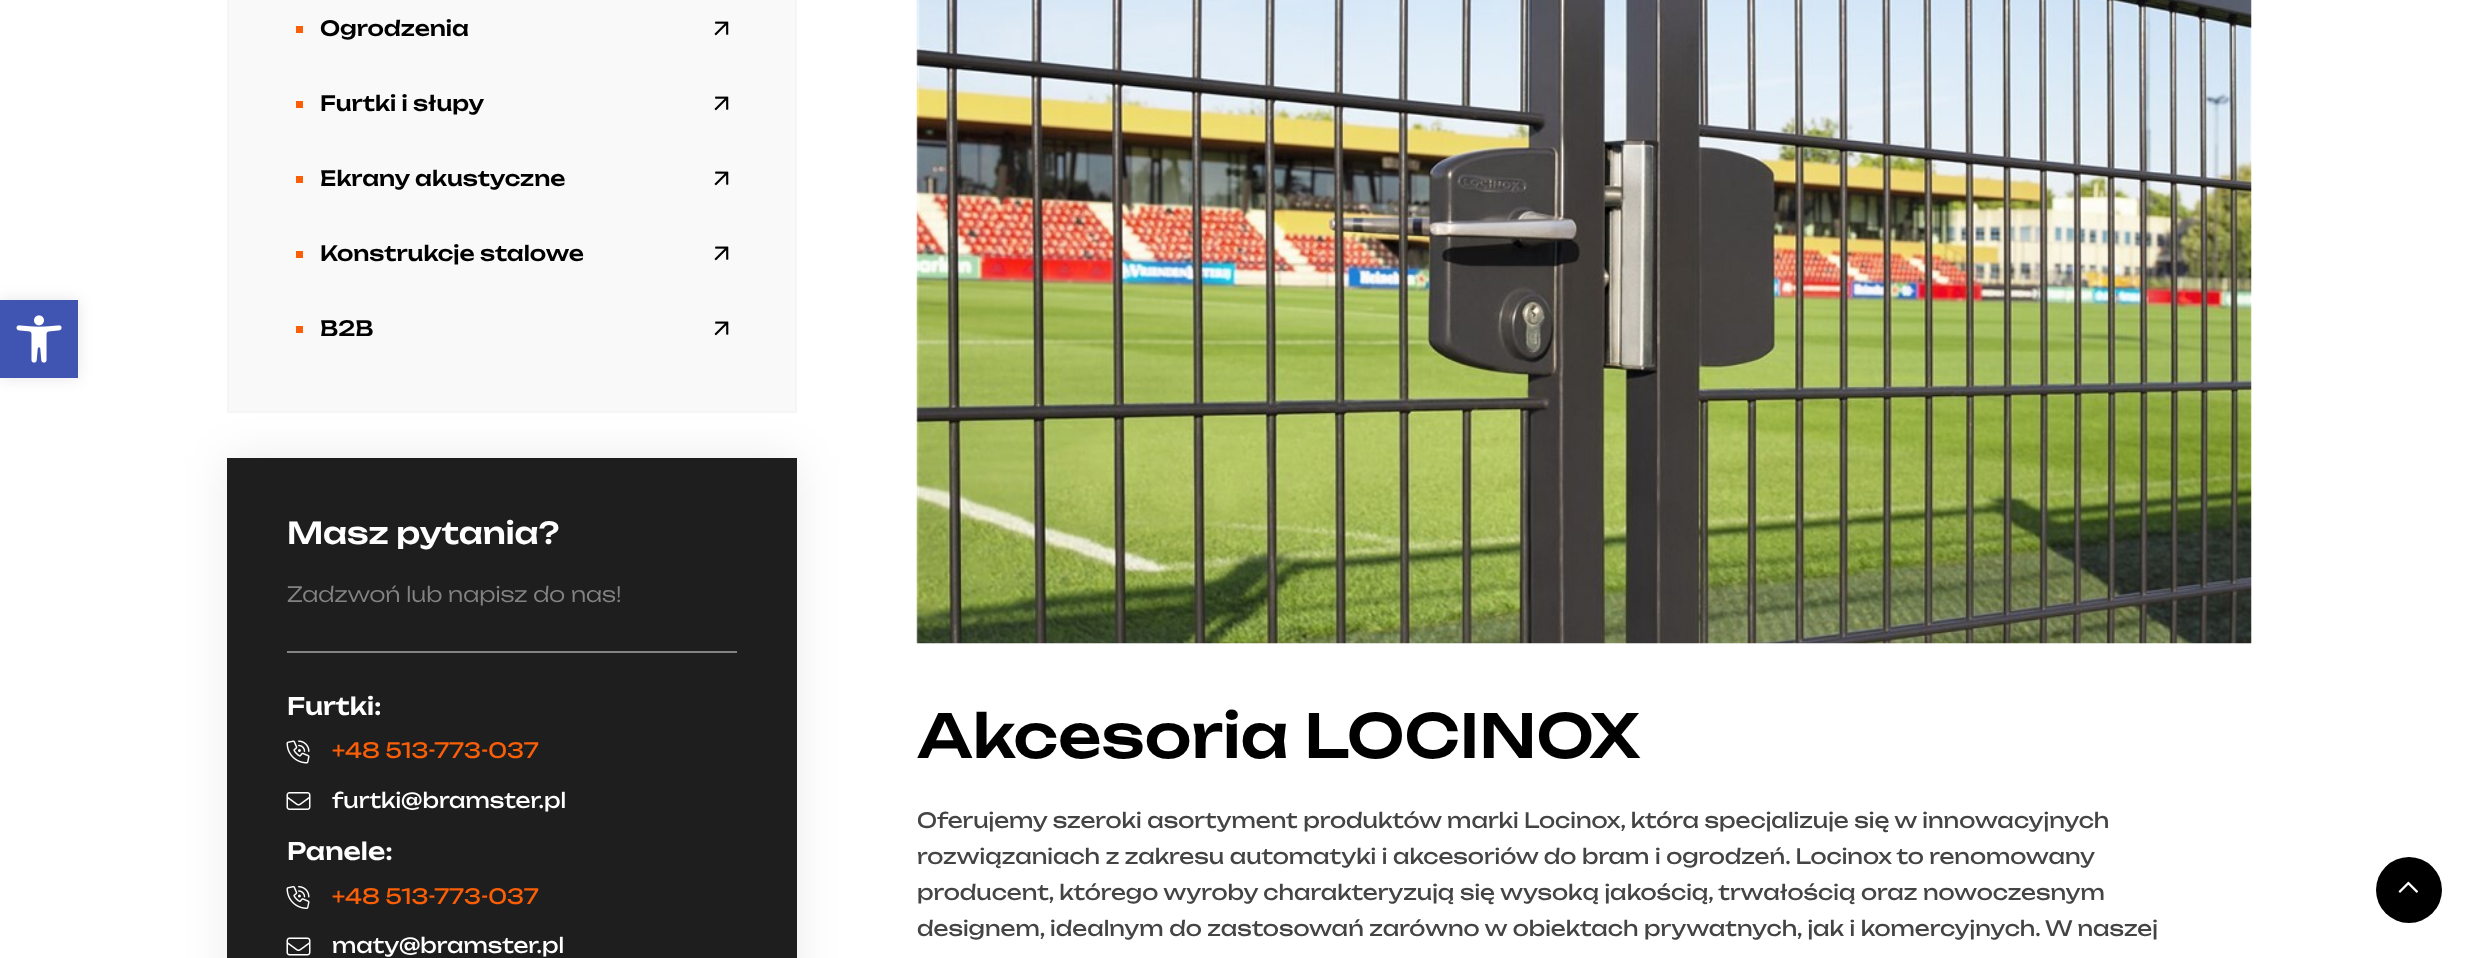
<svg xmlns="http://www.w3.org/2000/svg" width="2477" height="958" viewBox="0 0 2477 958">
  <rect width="100%" height="100%" fill="rgb(255,255,255)"/>
  <rect x="0" y="300" width="78" height="78" fill="rgba(0,0,0,0.1)" filter="blur(7.5px)"/>
  <rect x="0" y="300" width="78" height="78" fill="rgb(64,84,178)"/>
  <image x="16" y="315" width="46" height="48" href="pic1.png"/>
  <rect x="228" y="-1" width="568" height="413" fill="rgb(249,249,249)" stroke="rgb(245,245,245)" stroke-width="2"/>
  <rect x="296" y="26" width="7" height="7" fill="rgb(250,94,7)"/>
  <text x="320" y="36" font-family="Unbounded" font-size="21" font-weight="500" fill="rgb(0,0,0)">Ogrodzenia</text>
  <image x="714" y="21" width="15" height="15" href="pic2.png"/>
  <rect x="296" y="101" width="7" height="7" fill="rgb(250,94,7)"/>
  <text x="320" y="111" font-family="Unbounded" font-size="21" font-weight="500" fill="rgb(0,0,0)">Furtki i słupy</text>
  <image x="714" y="96" width="15" height="15" href="pic3.png"/>
  <rect x="296" y="176" width="7" height="7" fill="rgb(250,94,7)"/>
  <text x="320" y="186" font-family="Unbounded" font-size="21" font-weight="500" fill="rgb(0,0,0)">Ekrany akustyczne</text>
  <image x="714" y="171" width="15" height="15" href="pic4.png"/>
  <rect x="296" y="251" width="7" height="7" fill="rgb(250,94,7)"/>
  <text x="320" y="261" font-family="Unbounded" font-size="21" font-weight="500" fill="rgb(0,0,0)">Konstrukcje stalowe</text>
  <image x="714" y="246" width="15" height="15" href="pic5.png"/>
  <rect x="296" y="326" width="7" height="7" fill="rgb(250,94,7)"/>
  <text x="320" y="336" font-family="Unbounded" font-size="21" font-weight="500" fill="rgb(0,0,0)">B2B</text>
  <image x="714" y="321" width="15" height="15" href="pic6.png"/>
  <rect x="227" y="458" width="570" height="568" fill="rgba(0,0,0,0.08)" filter="blur(22.5px)"/>
  <rect x="227" y="458" width="570" height="500" fill="rgb(31,30,30)"/>
  <text x="287" y="544" font-family="Unbounded" font-size="30" font-weight="500" fill="rgb(255,255,255)">Masz pytania?</text>
  <text x="287" y="602" font-family="Unbounded" font-size="21" font-weight="300" fill="rgb(131,131,131)">Zadzwoń lub napisz do nas!</text>
  <rect x="287" y="651" width="450" height="2" fill="rgb(131,131,131)"/>
  <text x="287" y="715" font-family="Unbounded" font-size="24" font-weight="500" fill="rgb(255,255,255)">Furtki:</text>
  <image x="286" y="740" width="24" height="24" href="pic7.png"/>
  <text x="332" y="758" font-family="Unbounded" font-size="21" fill="rgb(250,94,7)">+48 513-773-037</text>
  <image x="286" y="792" width="25" height="18" href="pic8.png"/>
  <text x="332" y="808" font-family="Unbounded" font-size="21" fill="rgb(255,255,255)">furtki@bramster.pl</text>
  <text x="287" y="860" font-family="Unbounded" font-size="24" font-weight="500" fill="rgb(255,255,255)">Panele:</text>
  <image x="286" y="886" width="24" height="23" href="pic9.png"/>
  <text x="332" y="904" font-family="Unbounded" font-size="21" fill="rgb(250,94,7)">+48 513-773-037</text>
  <image x="286" y="937" width="25" height="19" href="pic10.png"/>
  <text x="332" y="953" font-family="Unbounded" font-size="21" fill="rgb(255,255,255)">maty@bramster.pl</text>
  <image x="916" y="0" width="1336" height="644" href="pic11.png"/>
  <text x="917" y="758" font-family="Unbounded" font-size="60" font-weight="500" fill="rgb(0,0,0)">Akcesoria LOCINOX</text>
  <g font-family="Unbounded" font-size="21" fill="rgb(68,68,68)">
    <text>
      <tspan x="917" y="828">Oferujemy szeroki asortyment produktów marki Locinox, która specjalizuje się w innowacyjnych</tspan>
      <tspan x="917" y="864">rozwiązaniach z zakresu automatyki i akcesoriów do bram i ogrodzeń. Locinox to renomowany</tspan>
      <tspan x="917" y="900">producent, którego wyroby charakteryzują się wysoką jakością, trwałością oraz nowoczesnym</tspan>
      <tspan x="917" y="936">designem, idealnym do zastosowań zarówno w obiektach prywatnych, jak i komercyjnych. W naszej</tspan>
    </text>
  </g>
  <circle cx="2409" cy="890" r="33" fill="rgb(0,0,0)"/>
  <image x="2398" y="881" width="20" height="12" href="pic12.png"/>
</svg>
